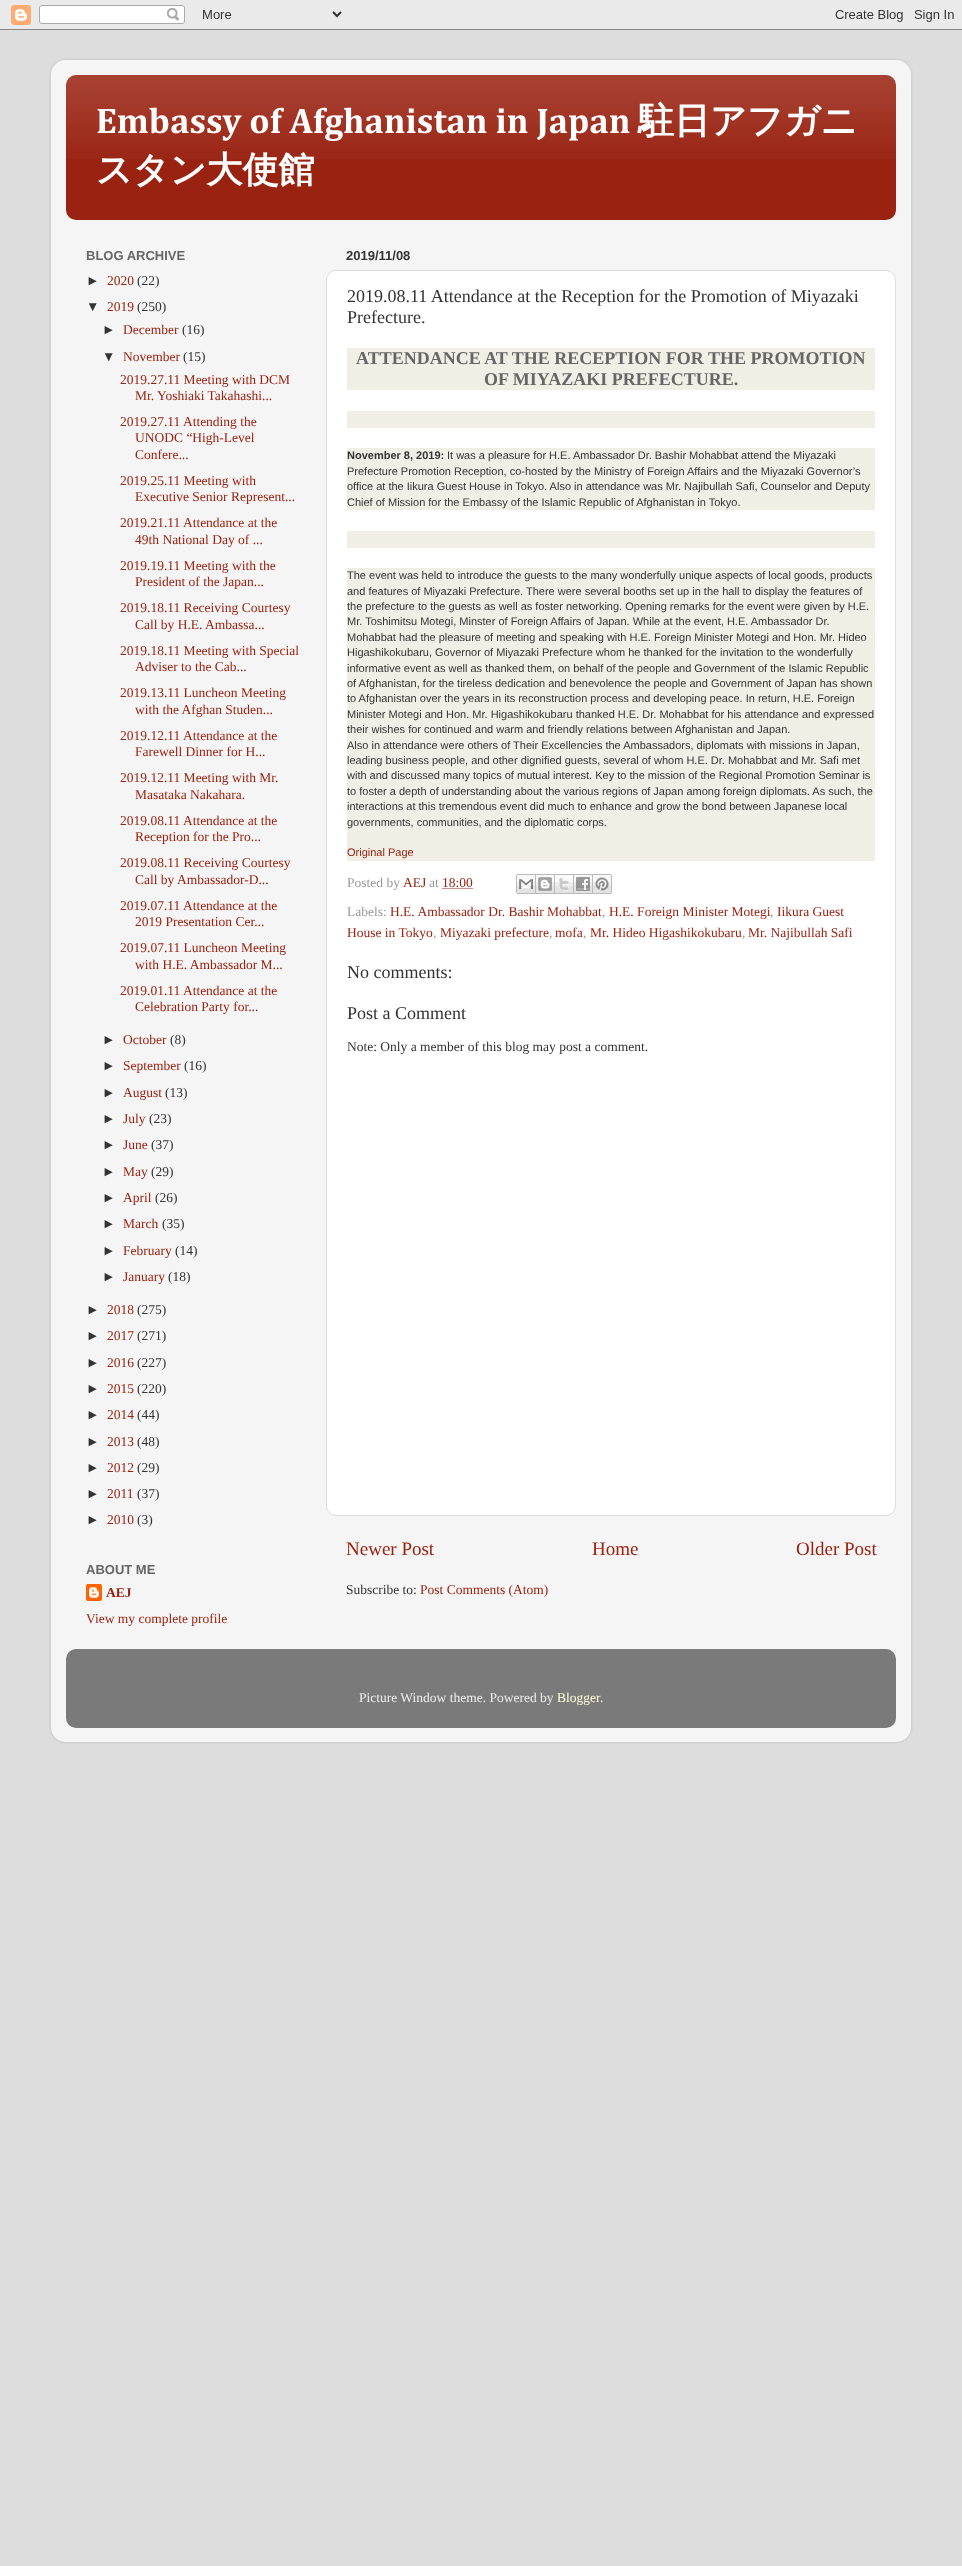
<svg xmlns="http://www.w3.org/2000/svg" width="962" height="2566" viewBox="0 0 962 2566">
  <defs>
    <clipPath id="clip1"><path d="M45 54H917V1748H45ZM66 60H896C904.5 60 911 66.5 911 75V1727C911 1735.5 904.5 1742 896 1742H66C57.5 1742 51 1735.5 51 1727V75C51 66.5 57.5 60 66 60Z" clip-rule="evenodd"/></clipPath>
  </defs>
  <rect width="100%" height="100%" fill="rgb(221,221,221)"/>
  <image x="0" y="0" width="962" height="30" href="pic1.png"/>
  <g clip-path="url(#clip1)">
    <rect x="51" y="60" width="860" height="1682" rx="15" fill="rgba(0,0,0,0.15)" filter="blur(1.5px)"/>
  </g>
  <image x="51" y="60" width="860" height="1682" href="pic2.png"/>
  <rect x="66" y="75" width="830" height="145" rx="10" fill="rgb(153,34,17)"/>
  <image x="66" y="75" width="830" height="84" href="pic3.png"/>
  <text x="96" y="133" font-family="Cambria" font-size="36" font-weight="bold" fill="rgb(255,255,255)">Embassy of Afghanistan in Japan</text>
  <g font-family="WenQuanYi Zen Hei" font-size="36" font-weight="bold" fill="rgb(255,255,255)">
    <text x="638" y="133">駐日アフガニ</text>
    <text x="96" y="182">スタン大使館</text>
  </g>
  <text x="86" y="260" font-family="Liberation Sans" font-size="13" font-weight="bold" fill="rgb(102,102,102)">BLOG ARCHIVE</text>
  <text x="86" y="285" font-family="Liberation Sans" font-size="13.5" fill="rgb(51,51,51)">►</text>
  <text x="107" y="285" font-family="Liberation Serif" font-size="13.5" fill="rgb(153,34,17)">2020</text>
  <text x="137" y="285" font-family="Liberation Serif" font-size="13.5" fill="rgb(51,51,51)">(22)</text>
  <text x="86" y="311" font-family="Liberation Sans" font-size="13.5" fill="rgb(51,51,51)">▼</text>
  <text x="107" y="311" font-family="Liberation Serif" font-size="13.5" fill="rgb(153,34,17)">2019</text>
  <text x="137" y="311" font-family="Liberation Serif" font-size="13.5" fill="rgb(51,51,51)">(250)</text>
  <text x="102" y="334" font-family="Liberation Sans" font-size="13.5" fill="rgb(51,51,51)">►</text>
  <text x="123" y="334" font-family="Liberation Serif" font-size="13.5" fill="rgb(153,34,17)">December</text>
  <text x="182" y="334" font-family="Liberation Serif" font-size="13.5" fill="rgb(51,51,51)">(16)</text>
  <text x="102" y="361" font-family="Liberation Sans" font-size="13.5" fill="rgb(51,51,51)">▼</text>
  <text x="123" y="361" font-family="Liberation Serif" font-size="13.5" fill="rgb(153,34,17)">November</text>
  <text x="183" y="361" font-family="Liberation Serif" font-size="13.5" fill="rgb(51,51,51)">(15)</text>
  <g font-family="Liberation Serif" font-size="13.5" fill="rgb(153,34,17)">
    <text x="120" y="384">2019.27.11 Meeting with DCM</text>
    <text x="135" y="400">Mr. Yoshiaki Takahashi...</text>
    <text x="120" y="426">2019.27.11 Attending the</text>
    <text>
      <tspan x="135" y="442">UNODC “High-Level</tspan>
      <tspan x="135" y="459">Confere...</tspan>
    </text>
    <text x="120" y="485">2019.25.11 Meeting with</text>
    <text x="135" y="501">Executive Senior Represent...</text>
    <text x="120" y="527">2019.21.11 Attendance at the</text>
    <text x="135" y="544">49th National Day of ...</text>
    <text x="120" y="570">2019.19.11 Meeting with the</text>
    <text x="135" y="586">President of the Japan...</text>
    <text x="120" y="612">2019.18.11 Receiving Courtesy</text>
    <text x="135" y="629">Call by H.E. Ambassa...</text>
    <text x="120" y="655">2019.18.11 Meeting with Special</text>
    <text x="135" y="671">Adviser to the Cab...</text>
    <text x="120" y="697">2019.13.11 Luncheon Meeting</text>
    <text x="135" y="714">with the Afghan Studen...</text>
    <text x="120" y="740">2019.12.11 Attendance at the</text>
    <text x="135" y="756">Farewell Dinner for H...</text>
    <text x="120" y="782">2019.12.11 Meeting with Mr.</text>
    <text x="135" y="799">Masataka Nakahara.</text>
    <text x="120" y="825">2019.08.11 Attendance at the</text>
    <text x="135" y="841">Reception for the Pro...</text>
    <text x="120" y="867">2019.08.11 Receiving Courtesy</text>
    <text x="135" y="884">Call by Ambassador-D...</text>
    <text x="120" y="910">2019.07.11 Attendance at the</text>
    <text x="135" y="926">2019 Presentation Cer...</text>
    <text x="120" y="952">2019.07.11 Luncheon Meeting</text>
    <text x="135" y="969">with H.E. Ambassador M...</text>
    <text x="120" y="995">2019.01.11 Attendance at the</text>
    <text x="135" y="1011">Celebration Party for...</text>
  </g>
  <text x="102" y="1044" font-family="Liberation Sans" font-size="13.5" fill="rgb(51,51,51)">►</text>
  <text x="123" y="1044" font-family="Liberation Serif" font-size="13.5" fill="rgb(153,34,17)">October</text>
  <text x="170" y="1044" font-family="Liberation Serif" font-size="13.5" fill="rgb(51,51,51)">(8)</text>
  <text x="102" y="1070" font-family="Liberation Sans" font-size="13.5" fill="rgb(51,51,51)">►</text>
  <text x="123" y="1070" font-family="Liberation Serif" font-size="13.5" fill="rgb(153,34,17)">September</text>
  <text x="184" y="1070" font-family="Liberation Serif" font-size="13.5" fill="rgb(51,51,51)">(16)</text>
  <text x="102" y="1097" font-family="Liberation Sans" font-size="13.5" fill="rgb(51,51,51)">►</text>
  <text x="123" y="1097" font-family="Liberation Serif" font-size="13.5" fill="rgb(153,34,17)">August</text>
  <text x="165" y="1097" font-family="Liberation Serif" font-size="13.5" fill="rgb(51,51,51)">(13)</text>
  <text x="102" y="1123" font-family="Liberation Sans" font-size="13.5" fill="rgb(51,51,51)">►</text>
  <text x="123" y="1123" font-family="Liberation Serif" font-size="13.5" fill="rgb(153,34,17)">July</text>
  <text x="149" y="1123" font-family="Liberation Serif" font-size="13.5" fill="rgb(51,51,51)">(23)</text>
  <text x="102" y="1149" font-family="Liberation Sans" font-size="13.5" fill="rgb(51,51,51)">►</text>
  <text x="123" y="1149" font-family="Liberation Serif" font-size="13.5" fill="rgb(153,34,17)">June</text>
  <text x="151" y="1149" font-family="Liberation Serif" font-size="13.5" fill="rgb(51,51,51)">(37)</text>
  <text x="102" y="1176" font-family="Liberation Sans" font-size="13.5" fill="rgb(51,51,51)">►</text>
  <text x="123" y="1176" font-family="Liberation Serif" font-size="13.5" fill="rgb(153,34,17)">May</text>
  <text x="151" y="1176" font-family="Liberation Serif" font-size="13.5" fill="rgb(51,51,51)">(29)</text>
  <text x="102" y="1202" font-family="Liberation Sans" font-size="13.5" fill="rgb(51,51,51)">►</text>
  <text x="123" y="1202" font-family="Liberation Serif" font-size="13.5" fill="rgb(153,34,17)">April</text>
  <text x="155" y="1202" font-family="Liberation Serif" font-size="13.5" fill="rgb(51,51,51)">(26)</text>
  <text x="102" y="1228" font-family="Liberation Sans" font-size="13.5" fill="rgb(51,51,51)">►</text>
  <text x="123" y="1228" font-family="Liberation Serif" font-size="13.5" fill="rgb(153,34,17)">March</text>
  <text x="162" y="1228" font-family="Liberation Serif" font-size="13.5" fill="rgb(51,51,51)">(35)</text>
  <text x="102" y="1255" font-family="Liberation Sans" font-size="13.5" fill="rgb(51,51,51)">►</text>
  <text x="123" y="1255" font-family="Liberation Serif" font-size="13.5" fill="rgb(153,34,17)">February</text>
  <text x="175" y="1255" font-family="Liberation Serif" font-size="13.5" fill="rgb(51,51,51)">(14)</text>
  <text x="102" y="1281" font-family="Liberation Sans" font-size="13.5" fill="rgb(51,51,51)">►</text>
  <text x="123" y="1281" font-family="Liberation Serif" font-size="13.5" fill="rgb(153,34,17)">January</text>
  <text x="168" y="1281" font-family="Liberation Serif" font-size="13.5" fill="rgb(51,51,51)">(18)</text>
  <text x="86" y="1314" font-family="Liberation Sans" font-size="13.5" fill="rgb(51,51,51)">►</text>
  <text x="107" y="1314" font-family="Liberation Serif" font-size="13.5" fill="rgb(153,34,17)">2018</text>
  <text x="137" y="1314" font-family="Liberation Serif" font-size="13.5" fill="rgb(51,51,51)">(275)</text>
  <text x="86" y="1340" font-family="Liberation Sans" font-size="13.5" fill="rgb(51,51,51)">►</text>
  <text x="107" y="1340" font-family="Liberation Serif" font-size="13.5" fill="rgb(153,34,17)">2017</text>
  <text x="137" y="1340" font-family="Liberation Serif" font-size="13.5" fill="rgb(51,51,51)">(271)</text>
  <text x="86" y="1367" font-family="Liberation Sans" font-size="13.5" fill="rgb(51,51,51)">►</text>
  <text x="107" y="1367" font-family="Liberation Serif" font-size="13.5" fill="rgb(153,34,17)">2016</text>
  <text x="137" y="1367" font-family="Liberation Serif" font-size="13.5" fill="rgb(51,51,51)">(227)</text>
  <text x="86" y="1393" font-family="Liberation Sans" font-size="13.5" fill="rgb(51,51,51)">►</text>
  <text x="107" y="1393" font-family="Liberation Serif" font-size="13.5" fill="rgb(153,34,17)">2015</text>
  <text x="137" y="1393" font-family="Liberation Serif" font-size="13.5" fill="rgb(51,51,51)">(220)</text>
  <text x="86" y="1419" font-family="Liberation Sans" font-size="13.5" fill="rgb(51,51,51)">►</text>
  <text x="107" y="1419" font-family="Liberation Serif" font-size="13.5" fill="rgb(153,34,17)">2014</text>
  <text x="137" y="1419" font-family="Liberation Serif" font-size="13.5" fill="rgb(51,51,51)">(44)</text>
  <text x="86" y="1446" font-family="Liberation Sans" font-size="13.5" fill="rgb(51,51,51)">►</text>
  <text x="107" y="1446" font-family="Liberation Serif" font-size="13.5" fill="rgb(153,34,17)">2013</text>
  <text x="137" y="1446" font-family="Liberation Serif" font-size="13.5" fill="rgb(51,51,51)">(48)</text>
  <text x="86" y="1472" font-family="Liberation Sans" font-size="13.5" fill="rgb(51,51,51)">►</text>
  <text x="107" y="1472" font-family="Liberation Serif" font-size="13.5" fill="rgb(153,34,17)">2012</text>
  <text x="137" y="1472" font-family="Liberation Serif" font-size="13.5" fill="rgb(51,51,51)">(29)</text>
  <text x="86" y="1498" font-family="Liberation Sans" font-size="13.5" fill="rgb(51,51,51)">►</text>
  <text x="107" y="1498" font-family="Liberation Serif" font-size="13.5" fill="rgb(153,34,17)">2011</text>
  <text x="137" y="1498" font-family="Liberation Serif" font-size="13.5" fill="rgb(51,51,51)">(37)</text>
  <text x="86" y="1524" font-family="Liberation Sans" font-size="13.5" fill="rgb(51,51,51)">►</text>
  <text x="107" y="1524" font-family="Liberation Serif" font-size="13.5" fill="rgb(153,34,17)">2010</text>
  <text x="137" y="1524" font-family="Liberation Serif" font-size="13.5" fill="rgb(51,51,51)">(3)</text>
  <text x="86" y="1574" font-family="Liberation Sans" font-size="13" font-weight="bold" fill="rgb(102,102,102)">ABOUT ME</text>
  <image x="86" y="1584" width="16" height="17" href="pic4.png"/>
  <text x="106" y="1597" font-family="Liberation Serif" font-size="13.5" font-weight="bold" fill="rgb(153,34,17)">AEJ</text>
  <text x="86" y="1623" font-family="Liberation Serif" font-size="13.5" fill="rgb(153,34,17)">View my complete profile</text>
  <text x="346" y="260" font-family="Liberation Sans" font-size="13" font-weight="bold" fill="rgb(51,51,51)">2019/11/08</text>
  <rect x="326.5" y="270.5" width="569" height="1245" rx="9.5" fill="rgb(255,255,255)" stroke="rgb(221,221,221)"/>
  <g font-family="Liberation Serif" font-size="18" fill="rgb(51,51,51)">
    <text>
      <tspan x="347" y="302">2019.08.11 Attendance at the Reception for the Promotion of Miyazaki</tspan>
      <tspan x="347" y="323">Prefecture.</tspan>
    </text>
  </g>
  <rect x="347" y="348" width="528" height="42" fill="rgb(239,239,229)"/>
  <g font-family="Liberation Serif" font-size="18" font-weight="bold" fill="rgb(102,102,102)">
    <text x="356" y="364">ATTENDANCE AT THE RECEPTION FOR THE PROMOTION</text>
    <text x="484" y="385">OF MIYAZAKI PREFECTURE.</text>
  </g>
  <rect x="347" y="411" width="528" height="17" fill="rgb(239,239,229)"/>
  <rect x="347" y="448" width="528" height="62" fill="rgb(239,239,229)"/>
  <text x="347" y="459" font-family="Liberation Sans" font-size="11" font-weight="bold" fill="rgb(51,51,51)">November 8, 2019:</text>
  <g font-family="Liberation Sans" font-size="11" fill="rgb(51,51,51)">
    <text x="447" y="459">It was a pleasure for H.E. Ambassador Dr. Bashir Mohabbat attend the Miyazaki</text>
    <text>
      <tspan x="347" y="475">Prefecture Promotion Reception, co-hosted by the Ministry of Foreign Affairs and the Miyazaki Governor’s</tspan>
      <tspan x="347" y="490">office at the Iikura Guest House in Tokyo. Also in attendance was Mr. Najibullah Safi, Counselor and Deputy</tspan>
      <tspan x="347" y="506">Chief of Mission for the Embassy of the Islamic Republic of Afghanistan in Tokyo.</tspan>
    </text>
  </g>
  <rect x="347" y="531" width="528" height="17" fill="rgb(239,239,229)"/>
  <rect x="347" y="568" width="528" height="293" fill="rgb(239,239,229)"/>
  <g font-family="Liberation Sans" font-size="11" fill="rgb(51,51,51)">
    <text>
      <tspan x="347" y="579">The event was held to introduce the guests to the many wonderfully unique aspects of local goods, products</tspan>
      <tspan x="347" y="595">and features of Miyazaki Prefecture. There were several booths set up in the hall to display the features of</tspan>
      <tspan x="347" y="610">the prefecture to the guests as well as foster networking. Opening remarks for the event were given by H.E.</tspan>
      <tspan x="347" y="625">Mr. Toshimitsu Motegi, Minster of Foreign Affairs of Japan. While at the event, H.E. Ambassador Dr.</tspan>
      <tspan x="347" y="641">Mohabbat had the pleasure of meeting and speaking with H.E. Foreign Minister Motegi and Hon. Mr. Hideo</tspan>
      <tspan x="347" y="656">Higashikokubaru, Governor of Miyazaki Prefecture whom he thanked for the invitation to the wonderfully</tspan>
      <tspan x="347" y="672">informative event as well as thanked them, on behalf of the people and Government of the Islamic Republic</tspan>
      <tspan x="347" y="687">of Afghanistan, for the tireless dedication and benevolence the people and Government of Japan has shown</tspan>
      <tspan x="347" y="702">to Afghanistan over the years in its reconstruction process and developing peace. In return, H.E. Foreign</tspan>
      <tspan x="347" y="718">Minister Motegi and Hon. Mr. Higashikokubaru thanked H.E. Dr. Mohabbat for his attendance and expressed</tspan>
      <tspan x="347" y="733">their wishes for continued and warm and friendly relations between Afghanistan and Japan.</tspan>
      <tspan x="347" y="749">Also in attendance were others of Their Excellencies the Ambassadors, diplomats with missions in Japan,</tspan>
      <tspan x="347" y="764">leading business people, and other dignified guests, several of whom H.E. Dr. Mohabbat and Mr. Safi met</tspan>
      <tspan x="347" y="779">with and discussed many topics of mutual interest. Key to the mission of the Regional Promotion Seminar is</tspan>
      <tspan x="347" y="795">to foster a depth of understanding about the various regions of Japan among foreign diplomats. As such, the</tspan>
      <tspan x="347" y="810">interactions at this tremendous event did much to enhance and grow the bond between Japanese local</tspan>
      <tspan x="347" y="826">governments, communities, and the diplomatic corps.</tspan>
    </text>
  </g>
  <text x="347" y="856" font-family="Liberation Sans" font-size="11" fill="rgb(153,34,17)">Original Page</text>
  <text x="347" y="887" font-family="Liberation Serif" font-size="13.5" fill="rgb(153,153,153)">Posted by</text>
  <text x="403" y="887" font-family="Liberation Serif" font-size="13.5" fill="rgb(153,34,17)">AEJ</text>
  <text x="429" y="887" font-family="Liberation Serif" font-size="13.5" fill="rgb(153,153,153)">at</text>
  <text x="442" y="887" font-family="Liberation Serif" font-size="13.5" fill="rgb(153,34,17)">18:00</text>
  <path d="M442.5 888.5H473" fill="none" stroke="rgb(153,34,17)" stroke-dasharray="1 1"/>
  <image x="516" y="874" width="20" height="20" href="pic5.png"/>
  <image x="536" y="874" width="19" height="20" href="pic6.png"/>
  <image x="555" y="874" width="19" height="20" href="pic7.png"/>
  <image x="574" y="874" width="19" height="20" href="pic8.png"/>
  <image x="593" y="874" width="19" height="20" href="pic9.png"/>
  <text x="347" y="916" font-family="Liberation Serif" font-size="13.5" fill="rgb(153,153,153)">Labels:</text>
  <text x="390" y="916" font-family="Liberation Serif" font-size="13.5" fill="rgb(153,34,17)">H.E. Ambassador Dr. Bashir Mohabbat</text>
  <text x="602" y="916" font-family="Liberation Serif" font-size="13.5" fill="rgb(153,153,153)">,</text>
  <text x="609" y="916" font-family="Liberation Serif" font-size="13.5" fill="rgb(153,34,17)">H.E. Foreign Minister Motegi</text>
  <text x="770" y="916" font-family="Liberation Serif" font-size="13.5" fill="rgb(153,153,153)">,</text>
  <g font-family="Liberation Serif" font-size="13.5" fill="rgb(153,34,17)">
    <text x="777" y="916">Iikura Guest</text>
    <text x="347" y="937">House in Tokyo</text>
  </g>
  <text x="433" y="937" font-family="Liberation Serif" font-size="13.5" fill="rgb(153,153,153)">,</text>
  <text x="440" y="937" font-family="Liberation Serif" font-size="13.5" fill="rgb(153,34,17)">Miyazaki prefecture</text>
  <text x="549" y="937" font-family="Liberation Serif" font-size="13.5" fill="rgb(153,153,153)">,</text>
  <text x="555" y="937" font-family="Liberation Serif" font-size="13.5" fill="rgb(153,34,17)">mofa</text>
  <text x="583" y="937" font-family="Liberation Serif" font-size="13.5" fill="rgb(153,153,153)">,</text>
  <text x="590" y="937" font-family="Liberation Serif" font-size="13.5" fill="rgb(153,34,17)">Mr. Hideo Higashikokubaru</text>
  <text x="742" y="937" font-family="Liberation Serif" font-size="13.5" fill="rgb(153,153,153)">,</text>
  <text x="748" y="937" font-family="Liberation Serif" font-size="13.5" fill="rgb(153,34,17)">Mr. Najibullah Safi</text>
  <g font-family="Liberation Serif" font-size="18" fill="rgb(51,51,51)">
    <text x="347" y="978">No comments:</text>
    <text x="347" y="1019">Post a Comment</text>
  </g>
  <text x="347" y="1051" font-family="Liberation Serif" font-size="13.5" fill="rgb(51,51,51)">Note: Only a member of this blog may post a comment.</text>
  <g font-family="Liberation Serif" font-size="19" fill="rgb(153,34,17)">
    <text x="346" y="1555">Newer Post</text>
    <text x="592" y="1555">Home</text>
    <text x="796" y="1555">Older Post</text>
  </g>
  <text x="346" y="1594" font-family="Liberation Serif" font-size="13.5" fill="rgb(51,51,51)">Subscribe to:</text>
  <text x="420" y="1594" font-family="Liberation Serif" font-size="13.5" fill="rgb(153,34,17)">Post Comments (Atom)</text>
  <image x="66" y="1649" width="830" height="79" href="pic10.png"/>
  <text x="359" y="1702" font-family="Liberation Serif" font-size="13.5" fill="rgb(238,238,238)">Picture Window theme. Powered by</text>
  <text x="557" y="1702" font-family="Liberation Serif" font-size="13.5" fill="rgb(255,255,221)">Blogger</text>
  <text x="600" y="1702" font-family="Liberation Serif" font-size="13.5" fill="rgb(238,238,238)">.</text>
</svg>
